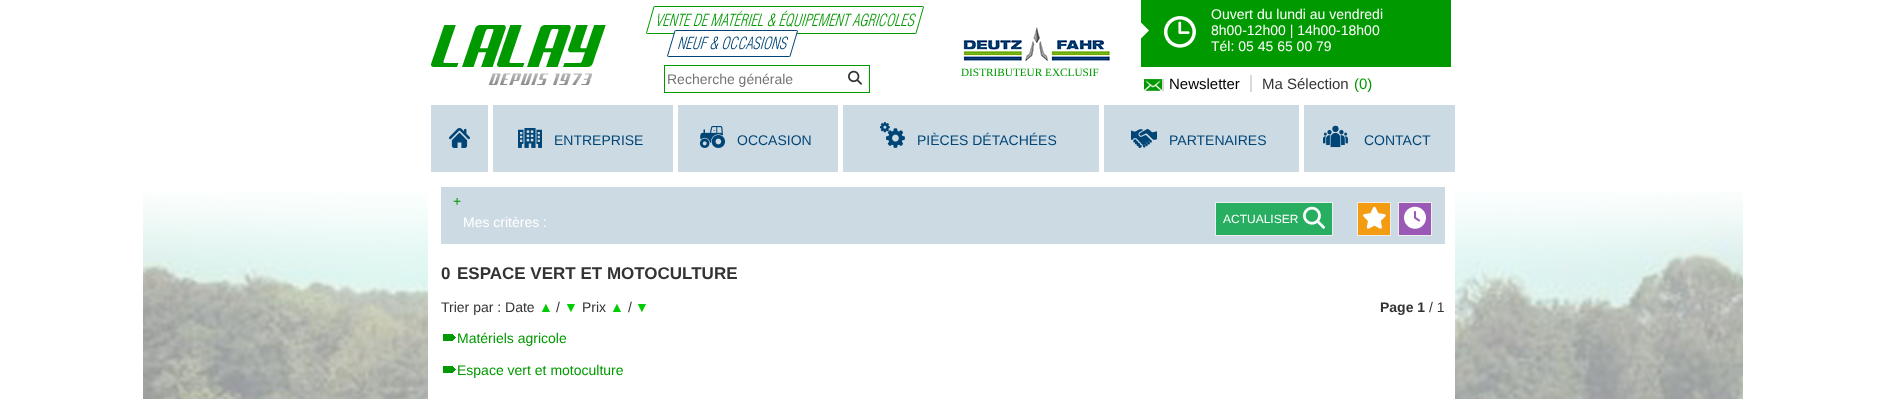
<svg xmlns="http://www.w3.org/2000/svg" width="1886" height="399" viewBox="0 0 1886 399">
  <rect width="100%" height="100%" fill="rgb(255,255,255)"/>
  <image x="431" y="25" width="175" height="42" href="pic1.png"/>
  <image x="488" y="73" width="105" height="12" href="pic2.png"/>
  <image x="646" y="6" width="278" height="51" href="pic3.png"/>
  <image x="963" y="27" width="147" height="35" href="pic4.png"/>
  <text x="961" y="76" font-family="Liberation Serif" font-size="11.25" fill="rgb(0,153,0)">DISTRIBUTEUR EXCLUSIF</text>
  <rect x="1141" y="0" width="310" height="67" fill="rgb(0,153,0)"/>
  <text x="1211" y="19" font-family="Liberation Sans" font-size="14" fill="rgb(255,255,255)">Ouvert du lundi au vendredi</text>
  <image x="1141" y="22" width="8" height="17" href="pic5.png"/>
  <image x="1164" y="16" width="32" height="32" href="pic6.png"/>
  <g font-family="Liberation Sans" font-size="14" fill="rgb(255,255,255)">
    <text>
      <tspan x="1211" y="35">8h00-12h00 | 14h00-18h00</tspan>
      <tspan x="1211" y="51">Tél: 05 45 65 00 79</tspan>
    </text>
  </g>
  <rect x="664.5" y="65.5" width="205" height="27" fill="none" stroke="rgb(0,153,0)"/>
  <text x="667" y="84" font-family="Liberation Sans" font-size="14" fill="rgb(117,117,117)">Recherche générale</text>
  <image x="848" y="70" width="14" height="15" href="pic7.png"/>
  <rect x="1162" y="79" width="2" height="12" fill="rgb(218,216,216)"/>
  <rect x="1250" y="75" width="2" height="17" fill="rgb(218,216,216)"/>
  <image x="1144" y="79" width="18" height="12" href="pic8.png"/>
  <text x="1169" y="89" font-family="Liberation Sans" font-size="15" fill="rgb(0,0,0)">Newsletter</text>
  <text x="1262" y="89" font-family="Liberation Sans" font-size="15" fill="rgb(51,51,51)">Ma Sélection</text>
  <text x="1354" y="89" font-family="Liberation Sans" font-size="15" fill="rgb(0,153,0)">(0)</text>
  <rect x="431" y="105" width="57" height="67" fill="rgb(204,218,227)"/>
  <image x="449" y="128" width="21" height="20" href="pic9.png"/>
  <rect x="493" y="105" width="180" height="67" fill="rgb(204,218,227)"/>
  <image x="518" y="128" width="24" height="20" href="pic10.png"/>
  <text x="554" y="145" font-family="Liberation Sans" font-size="14" fill="rgb(1,69,118)">ENTREPRISE</text>
  <rect x="678" y="105" width="160" height="67" fill="rgb(204,218,227)"/>
  <image x="700" y="126" width="25" height="22" href="pic11.png"/>
  <text x="737" y="145" font-family="Liberation Sans" font-size="14" fill="rgb(1,69,118)">OCCASION</text>
  <rect x="843" y="105" width="256" height="67" fill="rgb(204,218,227)"/>
  <image x="880" y="122" width="25" height="26" href="pic12.png"/>
  <text x="917" y="145" font-family="Liberation Sans" font-size="14" fill="rgb(1,69,118)">PIÈCES DÉTACHÉES</text>
  <rect x="1104" y="105" width="195" height="67" fill="rgb(204,218,227)"/>
  <image x="1131" y="129" width="26" height="19" href="pic13.png"/>
  <text x="1169" y="145" font-family="Liberation Sans" font-size="14" fill="rgb(1,69,118)">PARTENAIRES</text>
  <rect x="1304" y="105" width="151" height="67" fill="rgb(204,218,227)"/>
  <image x="1323" y="125" width="25" height="23" href="pic14.png"/>
  <text x="1364" y="145" font-family="Liberation Sans" font-size="14" fill="rgb(1,69,118)">CONTACT</text>
  <image x="143" y="191" width="1600" height="208" href="pic15.png"/>
  <rect x="1452" y="191" width="3" height="208" fill="rgb(255,255,255)"/>
  <rect x="441" y="187" width="1004" height="57" fill="rgb(204,218,227)"/>
  <text x="453" y="206" font-family="Liberation Sans" font-size="14" fill="rgb(0,153,0)">+</text>
  <text x="463" y="227" font-family="Liberation Sans" font-size="14" fill="rgb(255,255,255)">Mes critères :</text>
  <rect x="1215.5" y="202.5" width="117" height="33" fill="rgb(39,174,96)" stroke="rgb(238,238,238)"/>
  <text x="1223" y="223" font-family="Liberation Sans" font-size="12" fill="rgb(255,255,255)">ACTUALISER</text>
  <image x="1303" y="206" width="22" height="23" href="pic16.png"/>
  <rect x="1357.5" y="202.5" width="33" height="33" fill="rgb(243,156,18)" stroke="rgb(238,238,238)"/>
  <image x="1363" y="206" width="23" height="23" href="pic17.png"/>
  <rect x="1398.5" y="202.5" width="33" height="33" fill="rgb(155,89,182)" stroke="rgb(238,238,238)"/>
  <image x="1404" y="206" width="22" height="23" href="pic18.png"/>
  <g font-family="Liberation Sans" font-size="17" font-weight="bold" fill="rgb(51,51,51)">
    <text x="441" y="279">0</text>
    <text x="457" y="279">ESPACE VERT ET MOTOCULTURE</text>
  </g>
  <text x="441" y="312" font-family="Liberation Sans" font-size="14" fill="rgb(51,51,51)">Trier par : Date</text>
  <text x="539" y="312" font-family="Liberation Sans" font-size="14" fill="rgb(0,204,0)">▲</text>
  <text x="556" y="312" font-family="Liberation Sans" font-size="14" fill="rgb(51,51,51)">/</text>
  <text x="564" y="312" font-family="Liberation Sans" font-size="14" fill="rgb(0,204,0)">▼</text>
  <text x="582" y="312" font-family="Liberation Sans" font-size="14" fill="rgb(51,51,51)">Prix</text>
  <text x="610" y="312" font-family="Liberation Sans" font-size="14" fill="rgb(0,204,0)">▲</text>
  <text x="628" y="312" font-family="Liberation Sans" font-size="14" fill="rgb(51,51,51)">/</text>
  <text x="635" y="312" font-family="Liberation Sans" font-size="14" fill="rgb(0,204,0)">▼</text>
  <text x="1380" y="312" font-family="Liberation Sans" font-size="14" font-weight="bold" fill="rgb(51,51,51)">Page 1</text>
  <text x="1429" y="312" font-family="Liberation Sans" font-size="14" fill="rgb(51,51,51)">/ 1</text>
  <image x="443" y="334" width="13" height="7" href="pic19.png"/>
  <text x="457" y="343" font-family="Liberation Sans" font-size="14" fill="rgb(0,153,0)">Matériels agricole</text>
  <image x="443" y="366" width="13" height="7" href="pic19.png"/>
  <text x="457" y="375" font-family="Liberation Sans" font-size="14" fill="rgb(0,153,0)">Espace vert et motoculture</text>
</svg>
